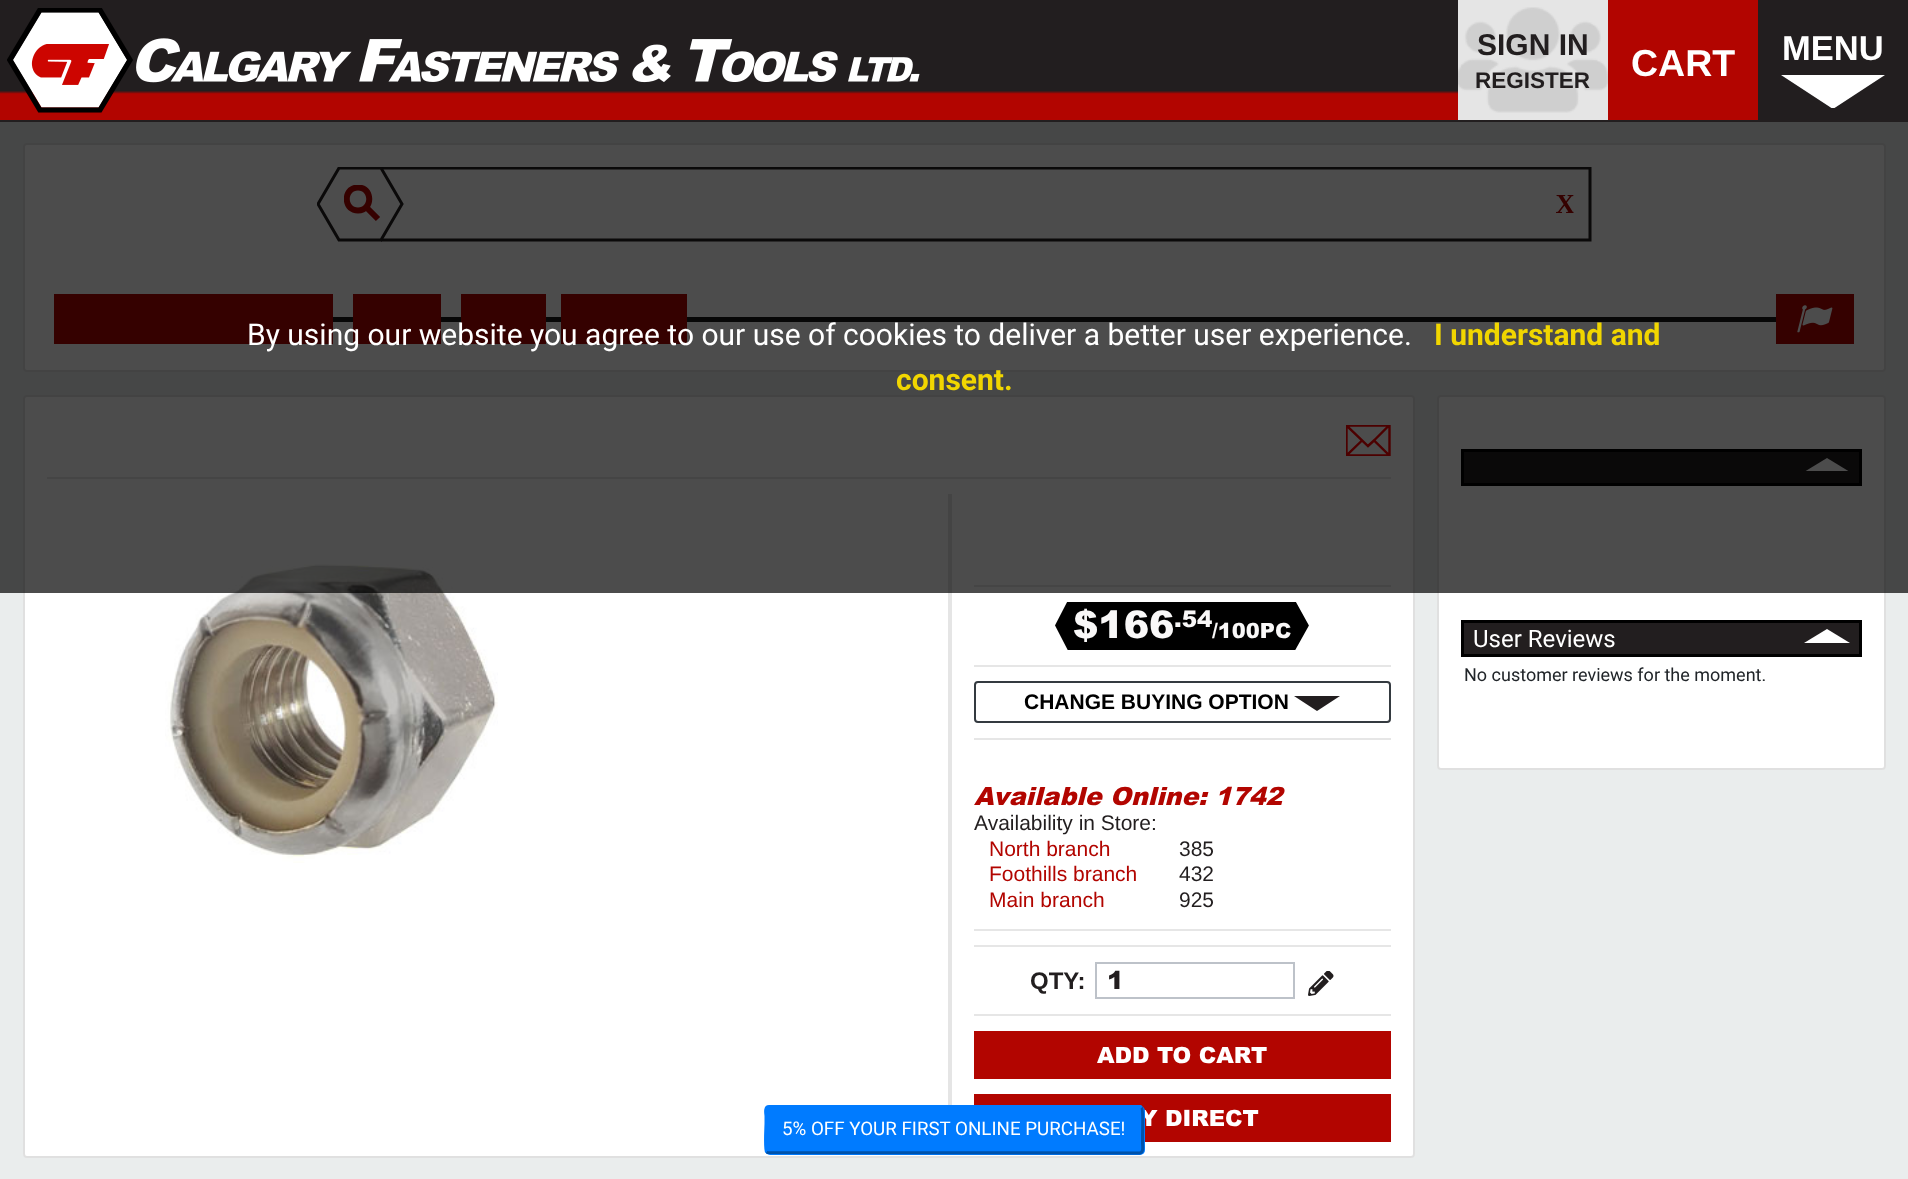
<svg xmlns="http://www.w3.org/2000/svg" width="1908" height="1179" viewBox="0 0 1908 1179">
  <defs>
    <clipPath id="clip1"><rect x="1781" y="75" width="105" height="33"/></clipPath>
    <clipPath id="clip2"><rect x="317" y="167" width="1275" height="75"/></clipPath>
    <clipPath id="clip3"><rect x="344" y="185" width="36" height="36"/></clipPath>
    <clipPath id="clip4"><rect x="1346" y="425" width="45" height="31"/></clipPath>
    <clipPath id="clip5"><rect x="1805" y="458" width="45" height="13"/></clipPath>
  </defs>
  <rect width="100%" height="100%" fill="rgb(234,237,237)"/>
  <image x="0" y="0" width="1458" height="120" href="pic1.png"/>
  <image x="7" y="8" width="126" height="105" href="pic2.png"/>
  <image x="136" y="38" width="784" height="45" href="pic3.png"/>
  <rect x="1458" y="0" width="150" height="120" fill="rgb(229,229,229)"/>
  <image x="1458" y="7" width="150" height="106" href="pic4.png"/>
  <text x="1477" y="55" font-family="Liberation Sans" font-size="30" font-weight="bold" fill="rgb(34,30,31)">SIGN IN</text>
  <text x="1475" y="88" font-family="Liberation Sans" font-size="22.5" font-weight="bold" fill="rgb(34,30,31)">REGISTER</text>
  <rect x="1608" y="0" width="150" height="120" fill="rgb(178,5,0)"/>
  <text x="1631" y="76" font-family="Liberation Sans" font-size="37.5" font-weight="bold" fill="rgb(255,255,255)">CART</text>
  <rect x="1758" y="0" width="150" height="120" fill="rgb(34,30,31)"/>
  <text x="1782" y="60" font-family="Liberation Sans" font-size="34.5" font-weight="bold" fill="rgb(255,255,255)">MENU</text>
  <g clip-path="url(#clip1)">
    <path d="M1833 109L1781 75H1885Z" fill="rgb(255,255,255)"/>
  </g>
  <rect x="0" y="120" width="1908" height="2" fill="rgb(34,30,31)"/>
  <rect x="23" y="143" width="1863" height="229" rx="4" fill="rgb(255,255,255)"/>
  <rect x="24" y="144" width="1861" height="227" rx="3" fill="none" stroke="rgba(0,0,0,0.12)" stroke-width="2"/>
  <g clip-path="url(#clip2)">
    <path d="M381 168H1590V240H381" fill="none" stroke="rgb(34,30,31)" stroke-width="3"/>
  </g>
  <path d="M339 240H381L402 204L381 168H339L318 204Z" fill="rgb(255,255,255)"/>
  <g clip-path="url(#clip2)">
    <path d="M339 240H381L402 204L381 168H339L318 204Z" fill="none" stroke="rgb(34,30,31)" stroke-width="3"/>
  </g>
  <g clip-path="url(#clip3)">
    <path d="M358 190.5C347 190.5 347 207.5 358 207.5C369 207.5 369 190.5 358 190.5M358 184.5C377 184.5 377 213.5 358 213.5C339 213.5 339 184.5 358 184.5Z" fill="rgb(178,5,0)"/>
  </g>
  <path d="M378 219L367 208" fill="none" stroke="rgb(178,5,0)" stroke-width="6"/>
  <image x="1556" y="195" width="18" height="18" href="pic5.png"/>
  <rect x="54" y="294" width="279" height="50" fill="rgb(178,5,0)"/>
  <rect x="333" y="317" width="1443" height="5" fill="rgb(26,26,26)"/>
  <rect x="353" y="294" width="88" height="50" fill="rgb(178,5,0)"/>
  <rect x="461" y="294" width="85" height="50" fill="rgb(178,5,0)"/>
  <rect x="561" y="294" width="126" height="50" fill="rgb(178,5,0)"/>
  <rect x="1776" y="294" width="78" height="50" fill="rgb(178,5,0)"/>
  <image x="1797" y="305" width="36" height="28" href="pic6.png"/>
  <rect x="23" y="395" width="1392" height="763" rx="4" fill="rgb(255,255,255)"/>
  <rect x="24" y="396" width="1390" height="761" rx="3" fill="none" stroke="rgba(0,0,0,0.12)" stroke-width="2"/>
  <g clip-path="url(#clip4)">
    <path d="M1346.5 425.5L1368 446L1374 440.5L1389.5 455.5M1346.5 455.5L1362 440.5M1368 455.5H1389.5V425.5H1346.5V455.5H1368M1374 440.5L1389 425.5" fill="none" stroke="rgb(255,0,0)" stroke-width="2.4"/>
  </g>
  <rect x="47" y="477" width="1344" height="2" fill="rgb(230,230,230)"/>
  <rect x="948" y="494" width="4" height="611" fill="rgb(229,229,229)"/>
  <image x="165" y="564" width="333" height="299" href="pic7.png"/>
  <rect x="974" y="585" width="417" height="2" fill="rgb(230,230,230)"/>
  <rect x="1437" y="395" width="449" height="375" rx="4" fill="rgb(255,255,255)"/>
  <rect x="1438" y="396" width="447" height="373" rx="3" fill="none" stroke="rgba(0,0,0,0.12)" stroke-width="2"/>
  <rect x="1462.5" y="450.5" width="398" height="34" fill="rgb(34,30,31)" stroke="rgb(0,0,0)" stroke-width="3"/>
  <g clip-path="url(#clip5)">
    <path d="M1827 458L1850 472H1804Z" fill="rgb(255,255,255)"/>
  </g>
  <rect x="0" y="122" width="1908" height="471" fill="rgba(0,0,0,0.7)"/>
  <text x="247" y="345" font-family="Roboto" font-size="30" fill="rgb(255,255,255)">By using our website you agree to our use of cookies to deliver a better user experience.</text>
  <g font-family="Roboto" font-size="30" font-weight="bold" fill="rgb(241,214,0)">
    <text x="1434" y="345">I understand and</text>
    <text x="896" y="390">consent.</text>
  </g>
  <image x="1055" y="602" width="15" height="48" href="pic8.png"/>
  <rect x="1070" y="602" width="225" height="48" fill="rgb(0,0,0)"/>
  <text x="1073" y="638" font-family="Arial" font-size="38" font-weight="900" fill="rgb(249,248,248)">$166</text>
  <text x="1174" y="627" font-family="Arial" font-size="23" font-weight="900" fill="rgb(249,248,248)">.54</text>
  <text x="1212" y="638" font-family="Arial" font-size="21" font-weight="900" fill="rgb(249,248,248)">/100PC</text>
  <image x="1295" y="602" width="14" height="48" href="pic9.png"/>
  <rect x="974" y="665" width="417" height="2" fill="rgb(230,230,230)"/>
  <rect x="975" y="682" width="415" height="40" rx="3" fill="none" stroke="rgb(52,58,64)" stroke-width="2"/>
  <text x="1024" y="709" font-family="Liberation Sans" font-size="21" font-weight="bold" fill="rgb(0,0,0)">CHANGE BUYING OPTION</text>
  <path d="M1317 711L1294 696H1340Z" fill="rgb(34,30,31)"/>
  <rect x="974" y="738" width="417" height="2" fill="rgb(230,230,230)"/>
  <text x="974" y="805" font-family="Arial" font-size="25.25" font-weight="900" font-style="italic" fill="rgb(178,5,0)">Available Online: 1742</text>
  <text x="974" y="830" font-family="Liberation Sans" font-size="21" fill="rgb(34,30,31)">Availability in Store:</text>
  <text x="989" y="856" font-family="Liberation Sans" font-size="21" fill="rgb(178,5,0)">North branch</text>
  <text x="1179" y="856" font-family="Liberation Sans" font-size="21" fill="rgb(34,30,31)">385</text>
  <text x="989" y="881" font-family="Liberation Sans" font-size="21" fill="rgb(178,5,0)">Foothills branch</text>
  <text x="1179" y="881" font-family="Liberation Sans" font-size="21" fill="rgb(34,30,31)">432</text>
  <text x="989" y="907" font-family="Liberation Sans" font-size="21" fill="rgb(178,5,0)">Main branch</text>
  <text x="1179" y="907" font-family="Liberation Sans" font-size="21" fill="rgb(34,30,31)">925</text>
  <rect x="974" y="929" width="417" height="2" fill="rgb(230,230,230)"/>
  <rect x="974" y="945" width="417" height="2" fill="rgb(230,230,230)"/>
  <text x="1030" y="989" font-family="Liberation Sans" font-size="24" font-weight="bold" fill="rgb(34,30,31)">QTY:</text>
  <rect x="1096" y="963" width="198" height="35" fill="none" stroke="rgb(189,194,201)" stroke-width="2"/>
  <text x="1107" y="989" font-family="Arial" font-size="25.25" font-weight="900" fill="rgb(34,30,31)">1</text>
  <image x="1308" y="971" width="26" height="25" href="pic10.png"/>
  <rect x="974" y="1014" width="417" height="2" fill="rgb(230,230,230)"/>
  <rect x="974" y="1031" width="417" height="48" fill="rgb(178,5,0)"/>
  <text x="1097" y="1063" font-family="Arial" font-size="22.5" font-weight="900" fill="rgb(255,255,255)">ADD TO CART</text>
  <rect x="974" y="1094" width="417" height="48" fill="rgb(178,5,0)"/>
  <text x="1140" y="1126" font-family="Arial" font-size="22.5" font-weight="900" fill="rgb(255,255,255)">Y DIRECT</text>
  <rect x="1462.5" y="621.5" width="398" height="34" fill="rgb(34,30,31)" stroke="rgb(0,0,0)" stroke-width="3"/>
  <text x="1473" y="647" font-family="Roboto" font-size="24" fill="rgb(255,255,255)">User Reviews</text>
  <path d="M1827 629L1850 643H1804Z" fill="rgb(255,255,255)"/>
  <text x="1464" y="681" font-family="Roboto" font-size="18" fill="rgb(33,37,41)">No customer reviews for the moment.</text>
  <rect x="765" y="1106" width="380" height="49" rx="5" fill="rgb(0,123,255)"/>
  <path d="M1141.5 1107.5C1143.5 1109.5 1142.5 1132 1142.5 1136.5V1143C1142.5 1145 1144 1153 1139.5 1153L767.5 1152.5L766.5 1152" fill="none" stroke="rgb(0,82,170)" stroke-width="3"/>
  <path d="M766.5 1152C764.5 1150 766 1127 766 1123V1116C766 1114.5 764 1106.5 769 1106.5H1140.5L1141.5 1107.5" fill="none" stroke="rgb(0,123,255)" stroke-width="3"/>
  <text x="782" y="1135" font-family="Roboto" font-size="18.75" fill="rgb(255,255,255)">5% OFF YOUR FIRST ONLINE PURCHASE!</text>
</svg>
